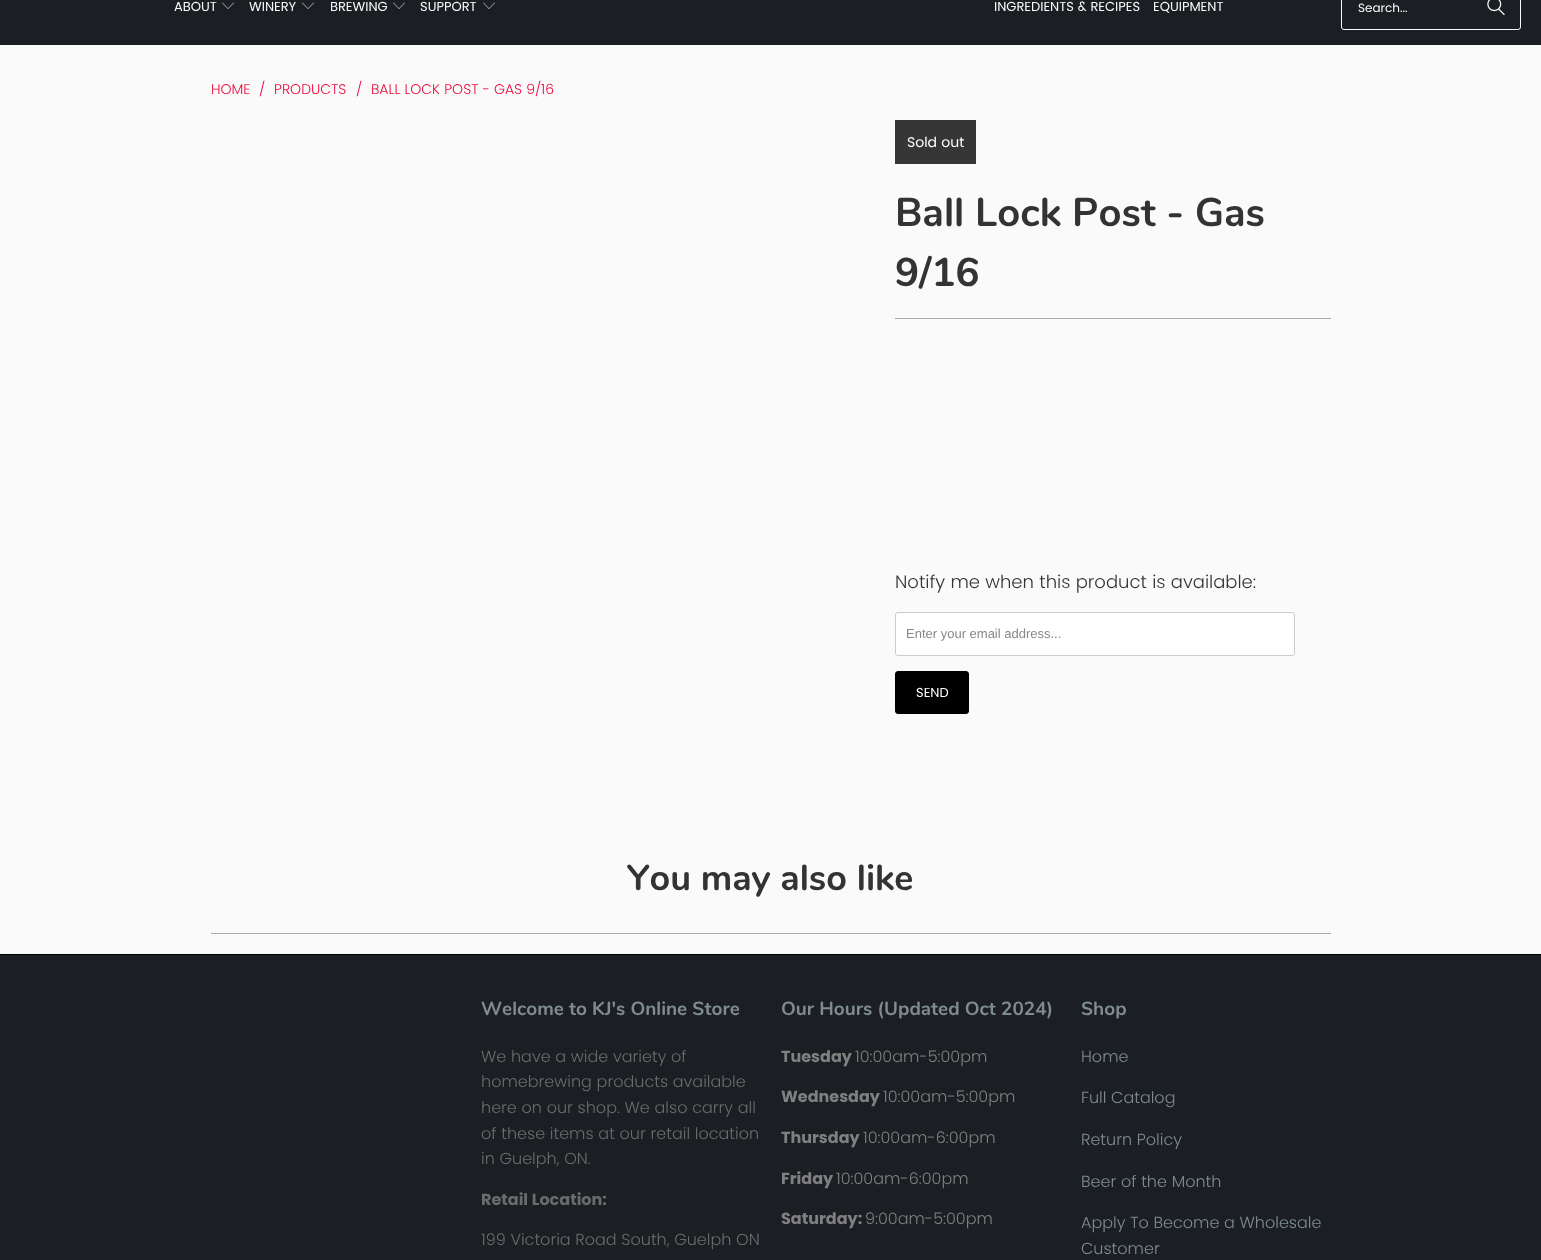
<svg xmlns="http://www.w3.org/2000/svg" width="1541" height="1260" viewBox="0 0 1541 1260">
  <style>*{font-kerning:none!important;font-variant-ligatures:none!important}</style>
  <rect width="100%" height="100%" fill="rgb(250,250,250)"/>
  <rect x="0" y="0" width="1541" height="45" fill="rgb(27,31,35)"/>
  <text x="174" y="11" font-family="Poppins" font-size="13" fill="rgb(249,249,249)">ABOUT</text>
  <image x="222" y="2" width="12" height="7" href="pic1.png"/>
  <text x="249" y="11" font-family="Poppins" font-size="13" fill="rgb(249,249,249)">WINERY</text>
  <image x="302" y="2" width="12" height="7" href="pic1.png"/>
  <text x="330" y="11" font-family="Poppins" font-size="13" fill="rgb(249,249,249)">BREWING</text>
  <image x="393" y="2" width="12" height="7" href="pic1.png"/>
  <text x="420" y="11" font-family="Poppins" font-size="13" fill="rgb(249,249,249)">SUPPORT</text>
  <image x="483" y="2" width="12" height="7" href="pic1.png"/>
  <g font-family="Poppins" font-size="13" fill="rgb(249,249,249)">
    <text x="994" y="11">INGREDIENTS &amp; RECIPES</text>
    <text x="1153" y="11">EQUIPMENT</text>
  </g>
  <rect x="1341.5" y="-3.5" width="179" height="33" rx="2.5" fill="none" stroke="rgb(249,249,249)"/>
  <text x="1358" y="12" font-family="Poppins" font-size="12" fill="rgb(249,249,249)">Search...</text>
  <image x="1487" y="0" width="18" height="16" href="pic2.png"/>
  <g font-family="Poppins" font-size="14" font-weight="300" fill="rgb(233,10,60)">
    <text x="211" y="94">HOME</text>
    <text x="259" y="94">/</text>
    <text x="274" y="94">PRODUCTS</text>
    <text x="356" y="94">/</text>
    <text x="371" y="94">BALL LOCK POST - GAS 9/16</text>
  </g>
  <rect x="895" y="120" width="81" height="44" fill="rgb(54,54,54)"/>
  <text x="907" y="147" font-family="Poppins" font-size="14" fill="rgb(255,255,255)">Sold out</text>
  <g font-family="Nunito" font-size="40" font-weight="bold" fill="rgb(51,51,51)">
    <text>
      <tspan x="895" y="226">Ball Lock Post - Gas</tspan>
      <tspan x="895" y="286">9/16</tspan>
    </text>
  </g>
  <rect x="895" y="318" width="436" height="1" fill="rgb(170,170,170)"/>
  <text x="895" y="588" font-family="Poppins" font-size="18" font-weight="300" fill="rgb(51,51,51)">Notify me when this product is available:</text>
  <rect x="895.5" y="612.5" width="399" height="43" rx="2.5" fill="rgb(255,255,255)" stroke="rgb(204,204,204)"/>
  <text x="906" y="638" font-family="Liberation Sans" font-size="13" fill="rgb(136,136,136)">Enter your email address...</text>
  <rect x="895.5" y="671.5" width="73" height="42" rx="2.5" fill="rgb(0,0,0)" stroke="rgb(0,0,0)"/>
  <text x="916" y="697" font-family="Poppins" font-size="13" fill="rgb(255,255,255)">SEND</text>
  <text x="627" y="890" font-family="Nunito" font-size="36" font-weight="bold" fill="rgb(51,51,51)">You may also like</text>
  <rect x="211" y="933" width="1120" height="1" fill="rgb(170,170,170)"/>
  <rect x="0" y="955" width="1541" height="305" fill="rgb(27,31,35)"/>
  <rect x="0" y="954" width="1541" height="1" fill="rgb(0,0,0)"/>
  <text x="481" y="1015" font-family="Nunito" font-size="19" font-weight="bold" fill="rgb(127,140,141)">Welcome to KJ's Online Store</text>
  <g font-family="Poppins" font-size="16" font-weight="300" fill="rgb(107,107,107)">
    <text>
      <tspan x="481" y="1062">We have a wide variety of</tspan>
      <tspan x="481" y="1087">homebrewing products available</tspan>
      <tspan x="481" y="1113">here on our shop. We also carry all</tspan>
      <tspan x="481" y="1139">of these items at our retail location</tspan>
      <tspan x="481" y="1164">in Guelph, ON.</tspan>
    </text>
  </g>
  <text x="481" y="1205" font-family="Poppins" font-size="16" font-weight="bold" fill="rgb(107,107,107)">Retail Location:</text>
  <text x="481" y="1245" font-family="Poppins" font-size="16" font-weight="300" fill="rgb(107,107,107)">199 Victoria Road South, Guelph ON</text>
  <text x="781" y="1015" font-family="Nunito" font-size="19" font-weight="bold" fill="rgb(127,140,141)">Our Hours (Updated Oct 2024)</text>
  <text x="781" y="1062" font-family="Poppins" font-size="16" font-weight="bold" fill="rgb(128,128,128)">Tuesday</text>
  <text x="855" y="1062" font-family="Poppins" font-size="16" font-weight="300" fill="rgb(128,128,128)">10:00am-5:00pm</text>
  <text x="781" y="1102" font-family="Poppins" font-size="16" font-weight="bold" fill="rgb(128,128,128)">Wednesday</text>
  <text x="883" y="1102" font-family="Poppins" font-size="16" font-weight="300" fill="rgb(128,128,128)">10:00am-5:00pm</text>
  <text x="781" y="1143" font-family="Poppins" font-size="16" font-weight="bold" fill="rgb(128,128,128)">Thursday</text>
  <text x="863" y="1143" font-family="Poppins" font-size="16" font-weight="300" fill="rgb(128,128,128)">10:00am-6:00pm</text>
  <text x="781" y="1184" font-family="Poppins" font-size="16" font-weight="bold" fill="rgb(128,128,128)">Friday</text>
  <text x="836" y="1184" font-family="Poppins" font-size="16" font-weight="300" fill="rgb(128,128,128)">10:00am-6:00pm</text>
  <text x="781" y="1224" font-family="Poppins" font-size="16" font-weight="bold" fill="rgb(128,128,128)">Saturday:</text>
  <text x="865" y="1224" font-family="Poppins" font-size="16" font-weight="300" fill="rgb(128,128,128)">9:00am-5:00pm</text>
  <text x="1081" y="1015" font-family="Nunito" font-size="19" font-weight="bold" fill="rgb(127,140,141)">Shop</text>
  <g font-family="Poppins" font-size="16" font-weight="300" fill="rgb(127,140,141)">
    <text x="1081" y="1062">Home</text>
    <text x="1081" y="1103">Full Catalog</text>
    <text x="1081" y="1145">Return Policy</text>
    <text x="1081" y="1187">Beer of the Month</text>
    <text>
      <tspan x="1081" y="1228">Apply To Become a Wholesale</tspan>
      <tspan x="1081" y="1254">Customer</tspan>
    </text>
  </g>
</svg>
